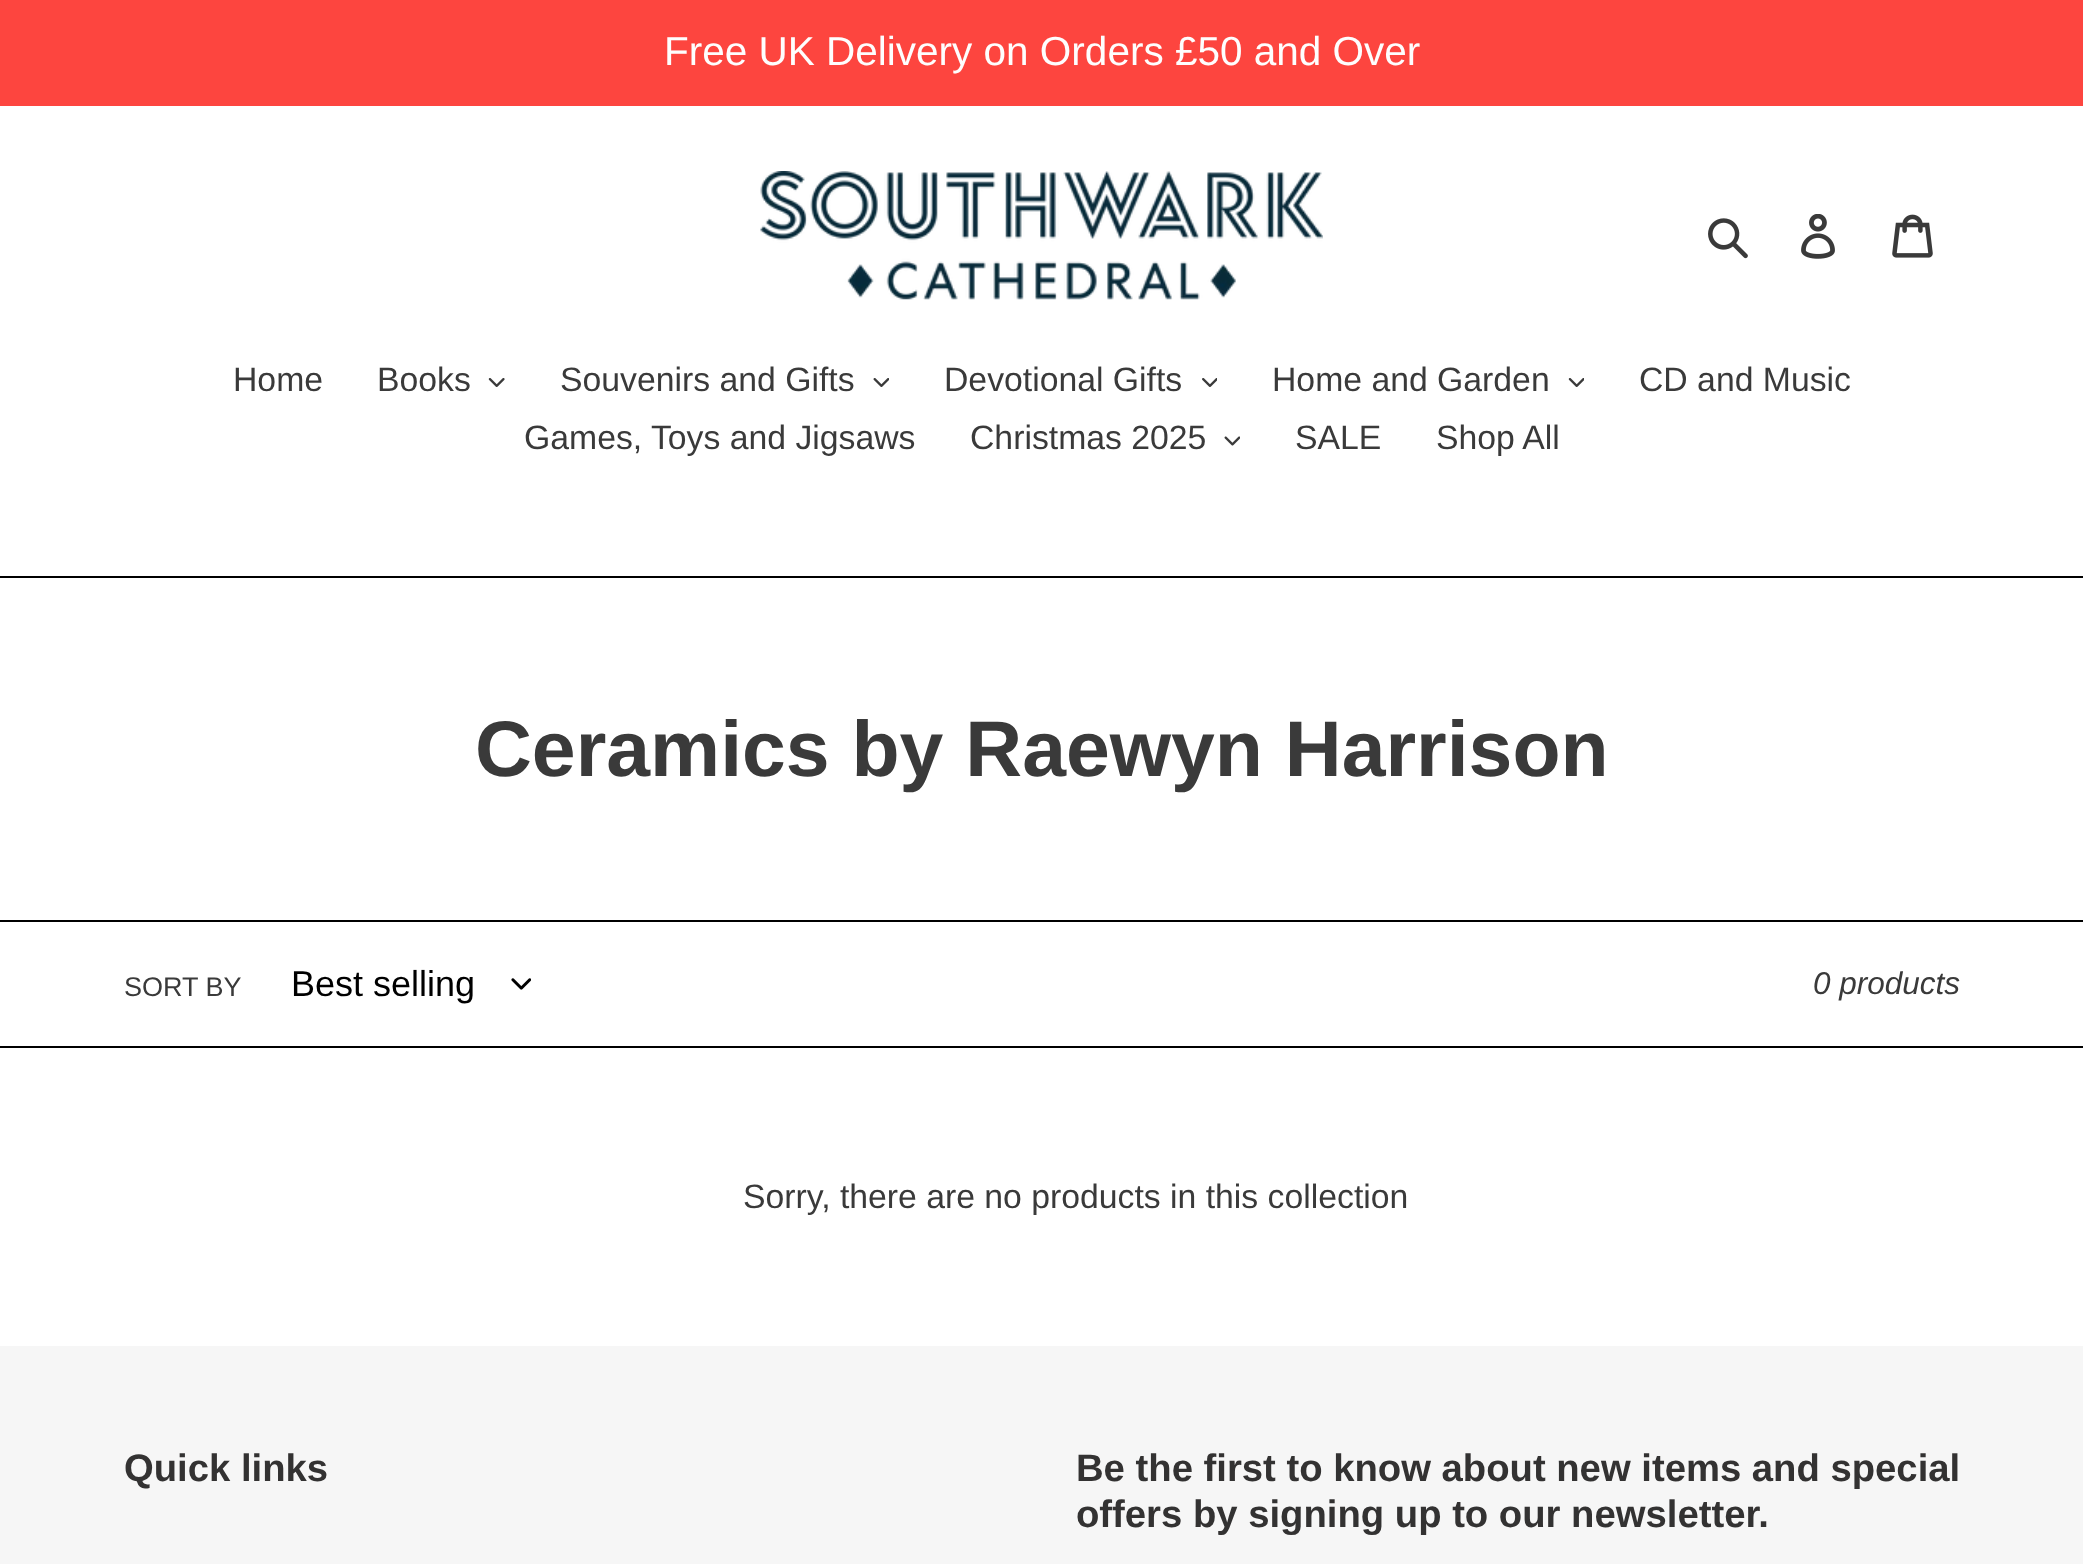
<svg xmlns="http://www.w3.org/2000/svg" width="2083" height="1564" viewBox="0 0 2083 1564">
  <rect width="100%" height="100%" fill="rgb(255,255,255)"/>
  <rect x="0" y="0" width="2083" height="106" fill="rgb(253,69,63)"/>
  <text x="664" y="65" font-family="Liberation Sans" font-size="40.5" fill="rgb(254,254,254)">Free UK Delivery on Orders £50 and Over</text>
  <image x="760" y="171" width="563" height="129" href="pic1.png"/>
  <image x="1708" y="218" width="40" height="41" href="pic2.png"/>
  <image x="1801" y="214" width="34" height="45" href="pic3.png"/>
  <image x="1892" y="214" width="41" height="44" href="pic4.png"/>
  <rect x="0" y="576" width="2083" height="2" fill="rgb(0,0,0)"/>
  <g font-family="Liberation Sans" font-size="33.75" fill="rgb(58,58,58)">
    <text x="233" y="391">Home</text>
    <text x="377" y="391">Books</text>
  </g>
  <image x="488" y="378" width="17" height="9" href="pic5.png"/>
  <text x="560" y="391" font-family="Liberation Sans" font-size="33.75" fill="rgb(58,58,58)">Souvenirs and Gifts</text>
  <image x="873" y="378" width="16" height="9" href="pic6.png"/>
  <text x="944" y="391" font-family="Liberation Sans" font-size="33.75" fill="rgb(58,58,58)">Devotional Gifts</text>
  <image x="1202" y="378" width="15" height="9" href="pic7.png"/>
  <text x="1272" y="391" font-family="Liberation Sans" font-size="33.75" fill="rgb(58,58,58)">Home and Garden</text>
  <image x="1568" y="378" width="16" height="9" href="pic8.png"/>
  <g font-family="Liberation Sans" font-size="33.75" fill="rgb(58,58,58)">
    <text x="1639" y="391">CD and Music</text>
    <text x="524" y="449">Games, Toys and Jigsaws</text>
    <text x="970" y="449">Christmas 2025</text>
  </g>
  <image x="1224" y="436" width="16" height="10" href="pic9.png"/>
  <g font-family="Liberation Sans" font-size="33.75" fill="rgb(58,58,58)">
    <text x="1295" y="449">SALE</text>
    <text x="1436" y="449">Shop All</text>
  </g>
  <text x="475" y="776" font-family="Liberation Sans" font-size="78.75" font-weight="bold" fill="rgb(58,58,58)">Ceramics by Raewyn Harrison</text>
  <rect x="0" y="920" width="2083" height="2" fill="rgb(0,0,0)"/>
  <rect x="0" y="1046" width="2083" height="2" fill="rgb(0,0,0)"/>
  <text x="124" y="996" font-family="Liberation Sans" font-size="27" fill="rgb(58,58,58)">SORT BY</text>
  <text x="291" y="996" font-family="Liberation Sans" font-size="36" fill="rgb(0,0,0)">Best selling</text>
  <image x="511" y="978" width="20" height="12" href="pic10.png"/>
  <text x="1813" y="994" font-family="Liberation Sans" font-size="31.5" font-style="italic" fill="rgb(58,58,58)">0 products</text>
  <text x="743" y="1208" font-family="Liberation Sans" font-size="33.75" fill="rgb(58,58,58)">Sorry, there are no products in this collection</text>
  <rect x="0" y="1346" width="2083" height="218" fill="rgb(246,246,246)"/>
  <g font-family="Liberation Sans" font-size="38.25" font-weight="bold" fill="rgb(51,50,50)">
    <text x="124" y="1481">Quick links</text>
    <text>
      <tspan x="1076" y="1481">Be the first to know about new items and special</tspan>
      <tspan x="1076" y="1527">offers by signing up to our newsletter.</tspan>
    </text>
  </g>
</svg>
